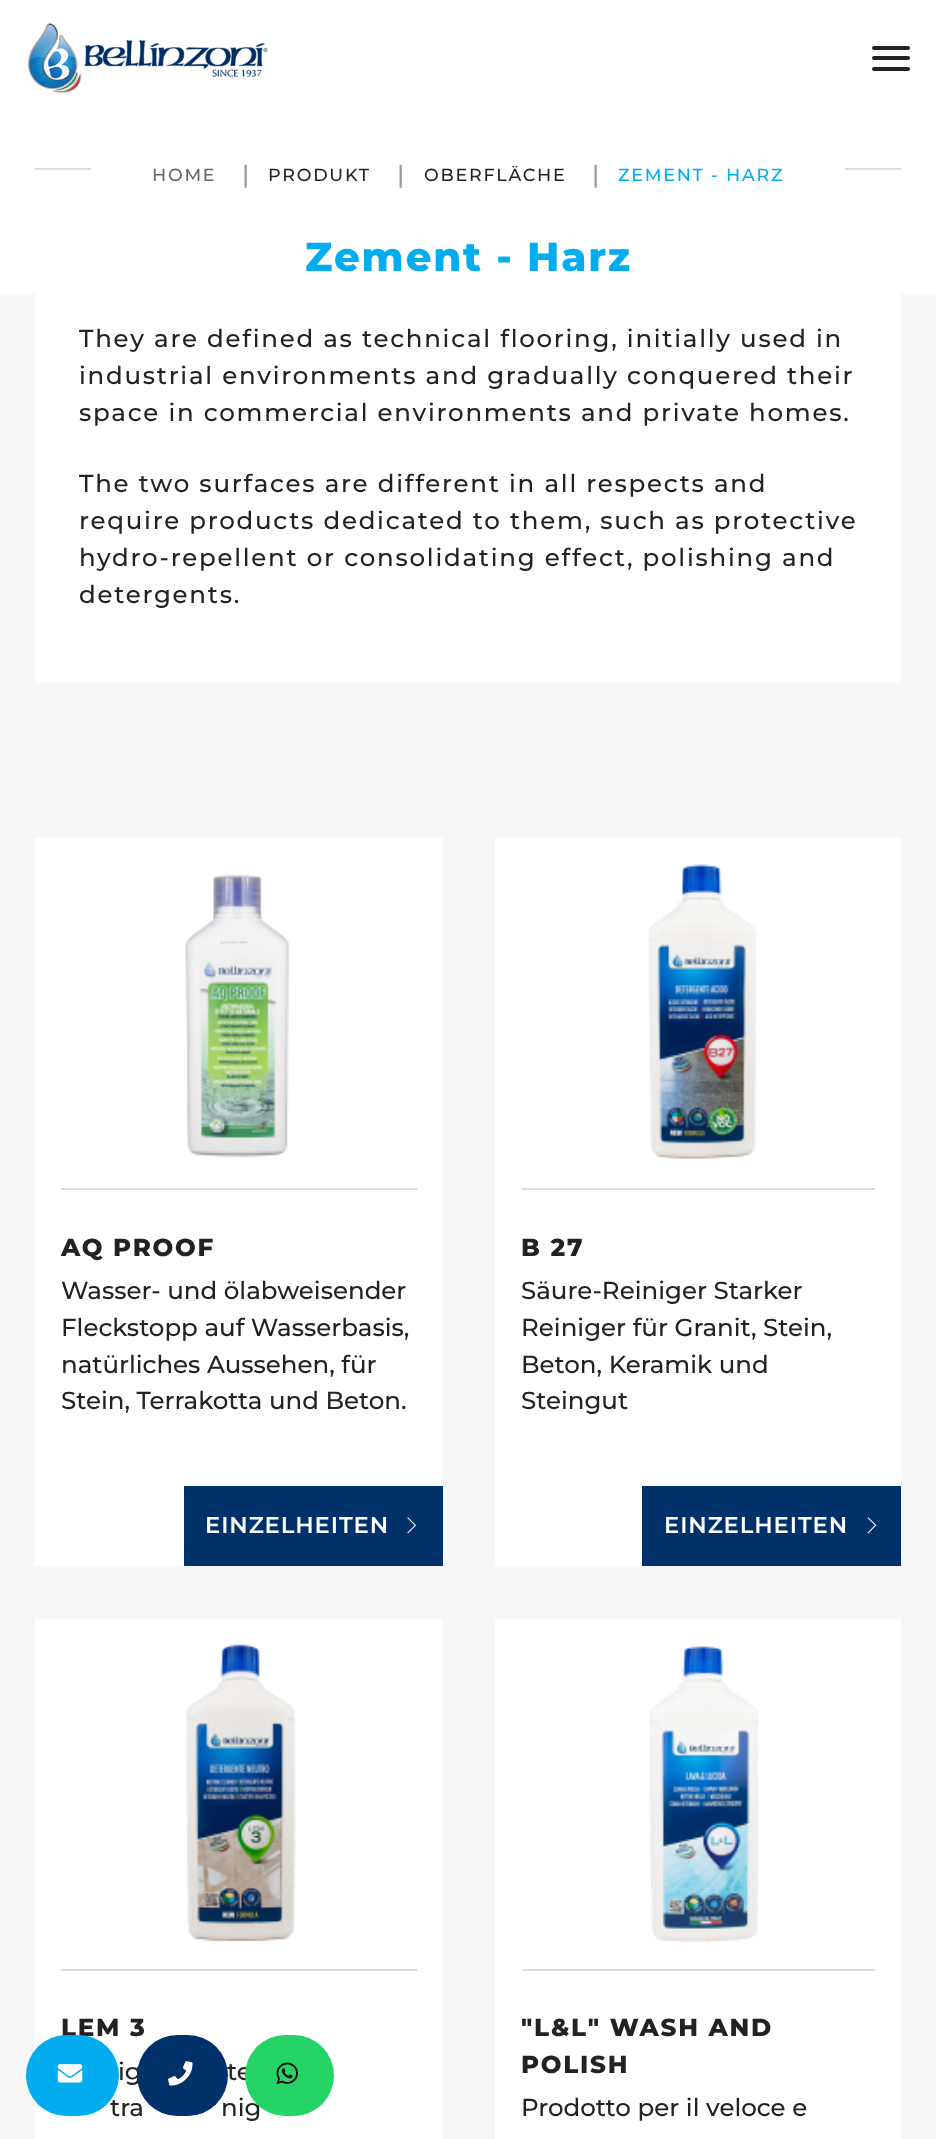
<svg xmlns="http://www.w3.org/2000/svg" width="936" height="2139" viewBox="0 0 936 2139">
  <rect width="100%" height="100%" fill="rgb(247,247,247)"/>
  <rect x="0" y="0" width="936" height="294" fill="rgb(255,255,255)"/>
  <image x="27" y="22" width="241" height="71" href="pic1.png"/>
  <rect x="872" y="46" width="38" height="4" rx="2" fill="rgb(35,35,35)"/>
  <rect x="872" y="56" width="38" height="4" rx="2" fill="rgb(35,35,35)"/>
  <rect x="872" y="67" width="38" height="4" rx="2" fill="rgb(35,35,35)"/>
  <rect x="35" y="168" width="56" height="2" fill="rgb(222,222,222)"/>
  <text x="152" y="181" font-family="Montserrat" font-size="17.5" font-weight="500" letter-spacing="1.75" fill="rgb(102,102,102)">HOME</text>
  <text x="242" y="183" font-family="Montserrat" font-size="24.5" font-weight="500" letter-spacing="1.75" fill="rgb(153,153,153)">|</text>
  <text x="268" y="181" font-family="Montserrat" font-size="17.5" font-weight="500" letter-spacing="1.75" fill="rgb(34,34,34)">PRODUKT</text>
  <text x="397" y="183" font-family="Montserrat" font-size="24.5" font-weight="500" letter-spacing="1.75" fill="rgb(153,153,153)">|</text>
  <text x="424" y="181" font-family="Montserrat" font-size="17.5" font-weight="500" letter-spacing="1.75" fill="rgb(34,34,34)">OBERFLÄCHE</text>
  <text x="592" y="183" font-family="Montserrat" font-size="24.5" font-weight="500" letter-spacing="1.75" fill="rgb(153,153,153)">|</text>
  <text x="618" y="181" font-family="Montserrat" font-size="17.5" font-weight="500" letter-spacing="1.75" fill="rgb(2,172,239)">ZEMENT - HARZ</text>
  <rect x="845" y="168" width="56" height="2" fill="rgb(222,222,222)"/>
  <text x="305" y="271" font-family="Montserrat" font-size="40.25" font-weight="800" letter-spacing="1.75" fill="rgb(2,172,239)">Zement - Harz</text>
  <rect x="35" y="294" width="866" height="389" fill="rgb(255,255,255)"/>
  <g font-family="Montserrat" font-size="24.5" font-weight="500" letter-spacing="1.75" fill="rgb(34,34,34)">
    <text>
      <tspan x="79" y="347">They are defined as technical flooring, initially used in</tspan>
      <tspan x="79" y="384">industrial environments and gradually conquered their</tspan>
      <tspan x="79" y="421">space in commercial environments and private homes.</tspan>
    </text>
    <text>
      <tspan x="79" y="492">The two surfaces are different in all respects and</tspan>
      <tspan x="79" y="529">require products dedicated to them, such as protective</tspan>
      <tspan x="79" y="566">hydro-repellent or consolidating effect, polishing and</tspan>
      <tspan x="79" y="603">detergents.</tspan>
    </text>
  </g>
  <rect x="35" y="838" width="408" height="728" fill="rgb(255,255,255)"/>
  <image x="185" y="874" width="105" height="284" href="pic2.png"/>
  <rect x="61" y="1188" width="356" height="2" fill="rgb(219,219,219)"/>
  <text x="61" y="1256" font-family="Montserrat" font-size="24.5" font-weight="800" letter-spacing="1.75" fill="rgb(34,34,34)">AQ PROOF</text>
  <g font-family="Montserrat" font-size="24.5" font-weight="500" fill="rgb(34,34,34)">
    <text>
      <tspan x="61" y="1299">Wasser- und ölabweisender</tspan>
      <tspan x="61" y="1336">Fleckstopp auf Wasserbasis,</tspan>
      <tspan x="61" y="1373">natürliches Aussehen, für</tspan>
      <tspan x="61" y="1409">Stein, Terrakotta und Beton.</tspan>
    </text>
  </g>
  <rect x="184" y="1486" width="259" height="80" fill="rgb(0,49,107)"/>
  <text x="205" y="1533" font-family="Montserrat" font-size="22.75" font-weight="600" letter-spacing="0.9" fill="rgb(255,255,255)">EINZELHEITEN</text>
  <image x="407" y="1517" width="9" height="17" href="pic3.png"/>
  <rect x="495" y="838" width="406" height="728" fill="rgb(255,255,255)"/>
  <image x="647" y="864" width="110" height="295" href="pic4.png"/>
  <rect x="522" y="1188" width="353" height="2" fill="rgb(219,219,219)"/>
  <text x="521" y="1256" font-family="Montserrat" font-size="24.5" font-weight="800" letter-spacing="1.75" fill="rgb(34,34,34)">B 27</text>
  <g font-family="Montserrat" font-size="24.5" font-weight="500" fill="rgb(34,34,34)">
    <text>
      <tspan x="521" y="1299">Säure-Reiniger Starker</tspan>
      <tspan x="521" y="1336">Reiniger für Granit, Stein,</tspan>
      <tspan x="521" y="1373">Beton, Keramik und</tspan>
      <tspan x="521" y="1409">Steingut</tspan>
    </text>
  </g>
  <rect x="642" y="1486" width="259" height="80" fill="rgb(0,49,107)"/>
  <text x="664" y="1533" font-family="Montserrat" font-size="22.75" font-weight="600" letter-spacing="0.9" fill="rgb(255,255,255)">EINZELHEITEN</text>
  <image x="867" y="1517" width="10" height="17" href="pic5.png"/>
  <rect x="35" y="1619" width="408" height="520" fill="rgb(255,255,255)"/>
  <image x="185" y="1644" width="111" height="298" href="pic6.png"/>
  <rect x="61" y="1969" width="356" height="2" fill="rgb(219,219,219)"/>
  <text x="61" y="2036" font-family="Montserrat" font-size="24.5" font-weight="800" letter-spacing="1.75" fill="rgb(34,34,34)">LEM 3</text>
  <g font-family="Montserrat" font-size="24.5" font-weight="500" fill="rgb(34,34,34)">
    <text x="118" y="2080">ig</text>
    <text x="227" y="2080">te</text>
    <text x="110" y="2116">tra</text>
    <text x="221" y="2116">nig</text>
  </g>
  <rect x="495" y="1619" width="406" height="520" fill="rgb(255,255,255)"/>
  <image x="649" y="1646" width="110" height="297" href="pic7.png"/>
  <rect x="522" y="1969" width="353" height="2" fill="rgb(219,219,219)"/>
  <g font-family="Montserrat" font-size="24.5" font-weight="800" letter-spacing="1.75" fill="rgb(34,34,34)">
    <text>
      <tspan x="521" y="2036">"L&amp;L" WASH AND</tspan>
      <tspan x="521" y="2073">POLISH</tspan>
    </text>
  </g>
  <text x="521" y="2116" font-family="Montserrat" font-size="24.5" font-weight="500" fill="rgb(34,34,34)">Prodotto per il veloce e</text>
  <rect x="26" y="2035" width="93" height="81" rx="40.5" fill="rgb(2,172,239)"/>
  <image x="57" y="2064" width="26" height="19" href="pic8.png"/>
  <rect x="137" y="2035" width="91" height="81" rx="40.5" fill="rgb(0,49,107)"/>
  <image x="168" y="2061" width="25" height="25" href="pic9.png"/>
  <rect x="245" y="2035" width="89" height="81" rx="40.5" fill="rgb(37,211,102)"/>
  <image x="276" y="2062" width="22" height="22" href="pic10.png"/>
</svg>
